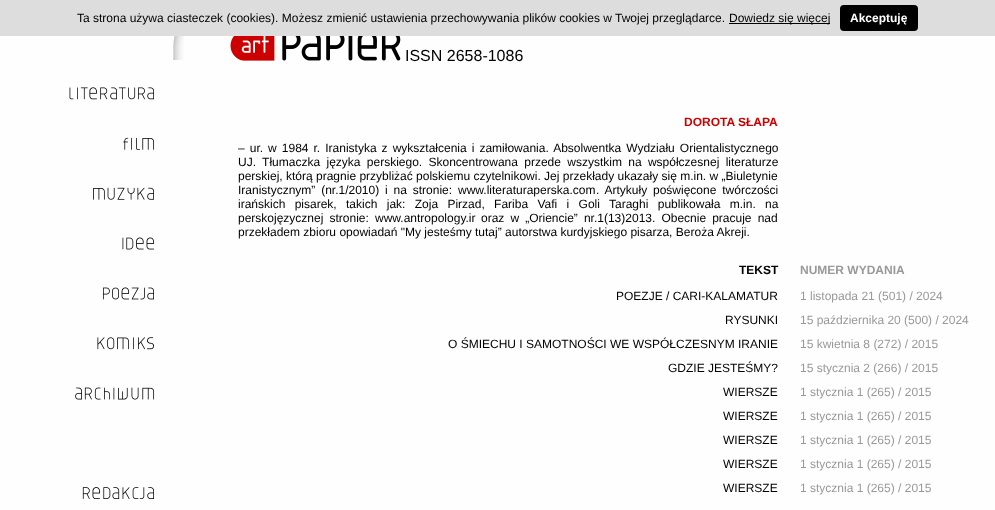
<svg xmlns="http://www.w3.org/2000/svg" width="995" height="510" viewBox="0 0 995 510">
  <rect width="100%" height="100%" fill="rgb(254,254,254)"/>
  <rect x="0" y="0" width="995" height="36" fill="rgb(221,221,221)"/>
  <text x="77" y="22" font-family="Liberation Sans" font-size="12" fill="rgb(0,0,0)">Ta strona używa ciasteczek (cookies). Możesz zmienić ustawienia przechowywania plików cookies w Twojej przeglądarce.</text>
  <rect x="729" y="23" width="101" height="1" fill="rgb(0,0,0)"/>
  <text x="729" y="22" font-family="Liberation Sans" font-size="12" fill="rgb(0,0,0)">Dowiedz się więcej</text>
  <rect x="840" y="5" width="78" height="26" rx="4" fill="rgb(0,0,0)"/>
  <text x="850" y="22" font-family="Liberation Sans" font-size="12" font-weight="bold" fill="rgb(255,255,255)">Akceptuję</text>
  <image x="173" y="36" width="11" height="24" href="pic1.png"/>
  <image x="69" y="87" width="85" height="13" href="pic2.png"/>
  <image x="123" y="137" width="32" height="13" href="pic3.png"/>
  <image x="93" y="187" width="61" height="13" href="pic4.png"/>
  <image x="122" y="237" width="32" height="13" href="pic5.png"/>
  <image x="103" y="287" width="51" height="13" href="pic6.png"/>
  <image x="97" y="337" width="57" height="13" href="pic7.png"/>
  <image x="75" y="387" width="80" height="13" href="pic8.png"/>
  <image x="82" y="487" width="72" height="12" href="pic9.png"/>
  <image x="230" y="36" width="171" height="25" href="pic10.png"/>
  <text x="405" y="61" font-family="Liberation Sans" font-size="16" fill="rgb(0,0,0)">ISSN 2658-1086</text>
  <text x="684" y="126" font-family="Liberation Sans" font-size="12" font-weight="bold" fill="rgb(204,0,0)">DOROTA SŁAPA</text>
  <g font-family="Liberation Sans" font-size="12" fill="rgb(0,0,0)">
    <text>
      <tspan x="238" y="152" word-spacing="1.7">– ur. w 1984 r. Iranistyka z wykształcenia i zamiłowania. Absolwentka Wydziału Orientalistycznego</tspan>
      <tspan x="238" y="166" word-spacing="3">UJ. Tłumaczka języka perskiego. Skoncentrowana przede wszystkim na współczesnej literaturze</tspan>
      <tspan x="238" y="180">perskiej, którą pragnie przybliżać polskiemu czytelnikowi. Jej przekłady ukazały się m.in. w „Biuletynie</tspan>
      <tspan x="238" y="194" word-spacing="2.5">Iranistycznym” (nr.1/2010) i na stronie:</tspan>
    </text>
    <text x="458" y="194">www.literaturaperska.com</text>
    <text x="596" y="194" word-spacing="2.5">. Artykuły poświęcone twórczości</text>
    <text>
      <tspan x="238" y="208" word-spacing="6">irańskich pisarek, takich jak: Zoja Pirzad, Fariba Vafi i Goli Taraghi publikowała m.in. na</tspan>
      <tspan x="238" y="222" word-spacing="2.75">perskojęzycznej stronie:</tspan>
    </text>
    <text x="375" y="222">www.antropology.ir</text>
    <text x="481" y="222" word-spacing="2.75">oraz w „Oriencie” nr.1(13)2013. Obecnie pracuje nad</text>
    <text x="238" y="236">przekładem zbioru opowiadań "My jesteśmy tutaj” autorstwa kurdyjskiego pisarza, Beroża Akreji.</text>
  </g>
  <text x="739" y="274" font-family="Liberation Sans" font-size="12" font-weight="bold" fill="rgb(0,0,0)">TEKST</text>
  <text x="800" y="274" font-family="Liberation Sans" font-size="12" font-weight="bold" fill="rgb(153,153,153)">NUMER WYDANIA</text>
  <text x="616" y="300" font-family="Liberation Sans" font-size="12" fill="rgb(0,0,0)">POEZJE / CARI-KALAMATUR</text>
  <text x="800" y="300" font-family="Liberation Sans" font-size="12" fill="rgb(153,153,153)">1 listopada 21 (501) / 2024</text>
  <text x="725" y="324" font-family="Liberation Sans" font-size="12" fill="rgb(0,0,0)">RYSUNKI</text>
  <text x="800" y="324" font-family="Liberation Sans" font-size="12" fill="rgb(153,153,153)">15 października 20 (500) / 2024</text>
  <text x="448" y="348" font-family="Liberation Sans" font-size="12" fill="rgb(0,0,0)">O ŚMIECHU I SAMOTNOŚCI WE WSPÓŁCZESNYM IRANIE</text>
  <text x="800" y="348" font-family="Liberation Sans" font-size="12" fill="rgb(153,153,153)">15 kwietnia 8 (272) / 2015</text>
  <text x="668" y="372" font-family="Liberation Sans" font-size="12" fill="rgb(0,0,0)">GDZIE JESTEŚMY?</text>
  <text x="800" y="372" font-family="Liberation Sans" font-size="12" fill="rgb(153,153,153)">15 stycznia 2 (266) / 2015</text>
  <text x="723" y="396" font-family="Liberation Sans" font-size="12" fill="rgb(0,0,0)">WIERSZE</text>
  <text x="800" y="396" font-family="Liberation Sans" font-size="12" fill="rgb(153,153,153)">1 stycznia 1 (265) / 2015</text>
  <text x="723" y="420" font-family="Liberation Sans" font-size="12" fill="rgb(0,0,0)">WIERSZE</text>
  <text x="800" y="420" font-family="Liberation Sans" font-size="12" fill="rgb(153,153,153)">1 stycznia 1 (265) / 2015</text>
  <text x="723" y="444" font-family="Liberation Sans" font-size="12" fill="rgb(0,0,0)">WIERSZE</text>
  <text x="800" y="444" font-family="Liberation Sans" font-size="12" fill="rgb(153,153,153)">1 stycznia 1 (265) / 2015</text>
  <text x="723" y="468" font-family="Liberation Sans" font-size="12" fill="rgb(0,0,0)">WIERSZE</text>
  <text x="800" y="468" font-family="Liberation Sans" font-size="12" fill="rgb(153,153,153)">1 stycznia 1 (265) / 2015</text>
  <text x="723" y="492" font-family="Liberation Sans" font-size="12" fill="rgb(0,0,0)">WIERSZE</text>
  <text x="800" y="492" font-family="Liberation Sans" font-size="12" fill="rgb(153,153,153)">1 stycznia 1 (265) / 2015</text>
</svg>
